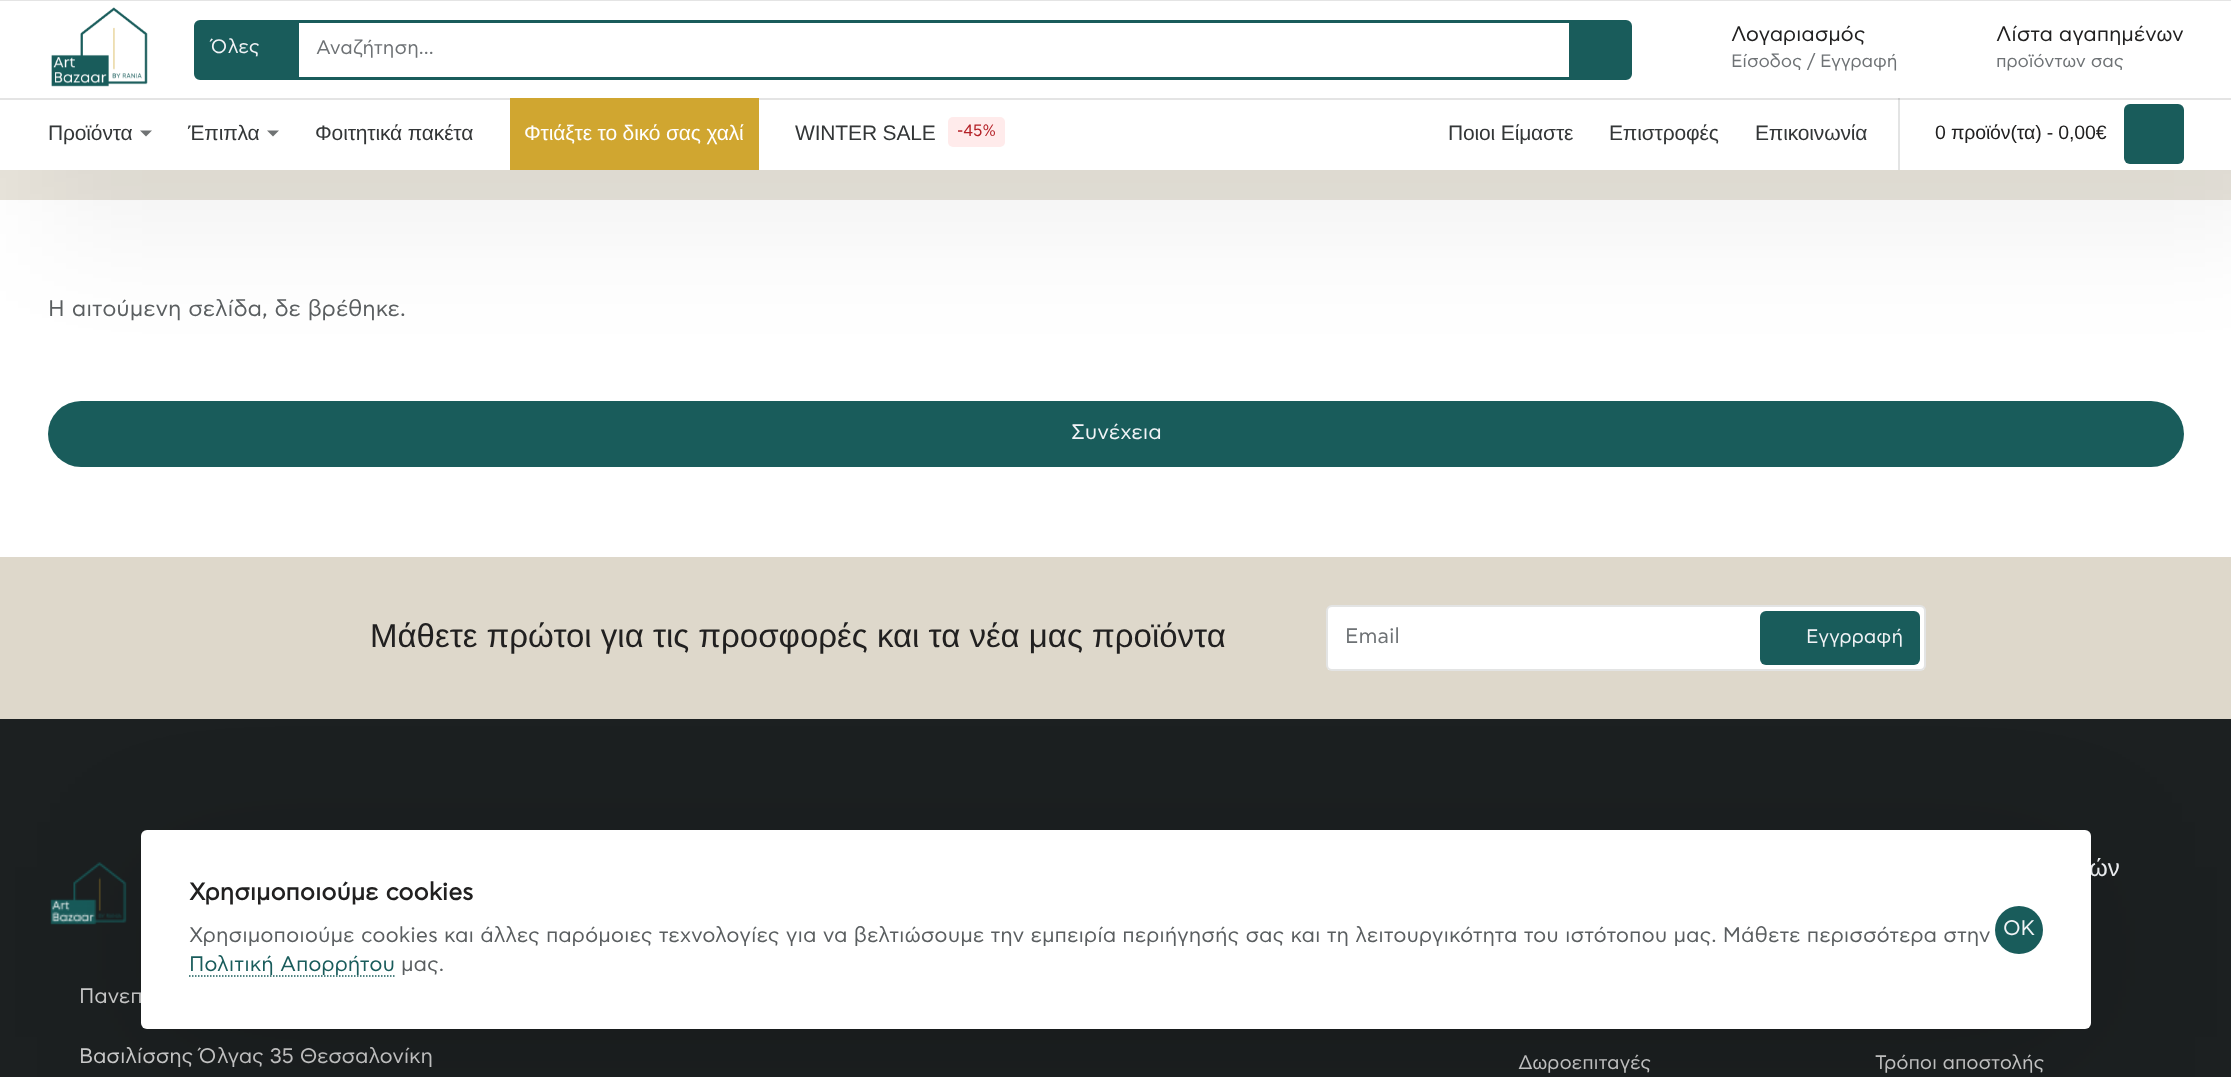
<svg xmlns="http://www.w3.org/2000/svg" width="2231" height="1077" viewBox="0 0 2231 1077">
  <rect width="100%" height="100%" fill="rgb(255,255,255)"/>
  <rect x="0" y="170" width="2231" height="30" fill="rgb(232,228,219)"/>
  <rect x="48" y="401" width="2136" height="66" rx="33" fill="rgb(25,92,91)"/>
  <rect x="42" y="5" width="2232" height="229" fill="rgba(0,0,0,0.05)" filter="blur(60px)"/>
  <rect x="0" y="1" width="2231" height="169" fill="rgb(255,255,255)"/>
  <rect x="0" y="0" width="2231" height="1" fill="rgb(228,228,228)"/>
  <image x="51" y="7" width="97" height="80" href="pic1.png"/>
  <rect x="195.5" y="21.5" width="1435" height="57" rx="4.5" fill="rgb(25,92,91)" stroke="rgb(25,92,91)" stroke-width="3"/>
  <text x="212" y="53" font-family="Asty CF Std" font-size="19.5" fill="rgb(241,243,246)">Όλες</text>
  <rect x="299" y="23" width="1270" height="54" fill="rgb(255,255,255)"/>
  <text x="316" y="54" font-family="Asty CF Std" font-size="19.5" fill="rgb(110,114,117)">Αναζήτηση...</text>
  <text x="1731" y="41" font-family="Asty CF Std" font-size="21" letter-spacing="-0.15" fill="rgb(33,32,32)">Λογαριασμός</text>
  <text x="1731" y="67" font-family="Asty CF Std" font-size="18" letter-spacing="-0.15" fill="rgb(110,114,117)">Είσοδος / Εγγραφή</text>
  <text x="1996" y="41" font-family="Asty CF Std" font-size="21" letter-spacing="-0.15" fill="rgb(33,32,32)">Λίστα αγαπημένων</text>
  <text x="1996" y="67" font-family="Asty CF Std" font-size="18" letter-spacing="-0.15" fill="rgb(110,114,117)">προϊόντων σας</text>
  <rect x="0" y="98" width="2231" height="2" fill="rgb(228,228,228)"/>
  <text x="48" y="140" font-family="Liberation Sans" font-size="21" letter-spacing="-0.15" fill="rgb(51,54,55)">Προϊόντα</text>
  <path d="M140 130.5H152L146 136.5Z" fill="rgb(112,115,116)"/>
  <text x="188" y="140" font-family="Liberation Sans" font-size="21" letter-spacing="-0.15" fill="rgb(51,54,55)">Έπιπλα</text>
  <path d="M267 130.5H279L273 136.5Z" fill="rgb(112,115,116)"/>
  <text x="315" y="140" font-family="Liberation Sans" font-size="21" letter-spacing="-0.15" fill="rgb(51,54,55)">Φοιτητικά πακέτα</text>
  <rect x="510" y="98" width="249" height="72" fill="rgb(208,166,48)"/>
  <text x="524" y="140" font-family="Liberation Sans" font-size="21" letter-spacing="-0.15" fill="rgb(255,255,255)">Φτιάξτε το δικό σας χαλί</text>
  <text x="795" y="140" font-family="Liberation Sans" font-size="21" letter-spacing="-0.15" fill="rgb(51,54,55)">WINTER SALE</text>
  <rect x="948" y="117" width="57" height="30" rx="5" fill="rgb(255,235,235)"/>
  <text x="957" y="136" font-family="Asty CF Std" font-size="16.5" letter-spacing="-0.15" fill="rgb(180,33,39)">-45%</text>
  <g font-family="Liberation Sans" font-size="21" letter-spacing="-0.15" fill="rgb(51,54,55)">
    <text x="1448" y="140">Ποιοι Είμαστε</text>
    <text x="1609" y="140">Επιστροφές</text>
    <text x="1755" y="140">Επικοινωνία</text>
  </g>
  <rect x="1898" y="98" width="2" height="72" fill="rgba(28,32,33,0.12)"/>
  <text x="1935" y="139" font-family="Liberation Sans" font-size="19.5" letter-spacing="-0.15" fill="rgb(33,32,32)">0 προϊόν(τα) - 0,00€</text>
  <rect x="2124" y="104" width="60" height="60" rx="6" fill="rgb(25,92,91)"/>
  <text x="48" y="316" font-family="Asty CF Std" font-size="22.5" fill="rgb(90,94,96)">Η αιτούμενη σελίδα, δε βρέθηκε.</text>
  <text x="1071" y="439" font-family="Asty CF Std" font-size="21" fill="rgb(241,243,246)">Συνέχεια</text>
  <rect x="0" y="719" width="2231" height="358" fill="rgb(28,32,33)"/>
  <rect x="0" y="557" width="2231" height="162" fill="rgb(222,216,203)"/>
  <text x="370" y="647" font-family="Liberation Sans" font-size="33" fill="rgb(33,32,32)">Μάθετε πρώτοι για τις προσφορές και τα νέα μας προϊόντα</text>
  <rect x="1326" y="605" width="600" height="66" rx="6" fill="rgb(255,255,255)"/>
  <rect x="1327" y="606" width="598" height="64" rx="5" fill="none" stroke="rgba(28,32,33,0.12)" stroke-width="2"/>
  <text x="1345" y="643" font-family="Asty CF Std" font-size="21" fill="rgb(110,114,117)">Email</text>
  <rect x="1760" y="611" width="160" height="54" rx="6" fill="rgb(25,92,91)"/>
  <text x="1806" y="643" font-family="Asty CF Std" font-size="19.5" fill="rgb(241,243,246)">Εγγρραφή</text>
  <image x="50" y="862" width="77" height="63" href="pic2.png"/>
  <g font-family="Asty CF Std" font-size="21" letter-spacing="-0.15" fill="rgb(204,204,204)">
    <text x="79" y="1003">Πανεπ</text>
    <text x="79" y="1063">Βασιλίσσης Όλγας 35 Θεσσαλονίκη</text>
  </g>
  <text x="1518" y="1069" font-family="Asty CF Std" font-size="19.5" letter-spacing="-0.15" fill="rgb(204,204,204)">Δωροεπιταγές</text>
  <text x="2089" y="876" font-family="Liberation Sans" font-size="24" fill="rgb(241,243,246)">ών</text>
  <text x="1875" y="1069" font-family="Asty CF Std" font-size="19.5" letter-spacing="-0.15" fill="rgb(204,204,204)">Τρόποι αποστολής</text>
  <rect x="156" y="867" width="1920" height="170" fill="rgba(0,0,0,0.2)" filter="blur(67.5px)"/>
  <rect x="141" y="830" width="1950" height="199" rx="6" fill="rgb(255,255,255)"/>
  <text x="189" y="900" font-family="Asty CF Std" font-size="24" font-weight="bold" fill="rgb(33,32,32)">Χρησιμοποιούμε cookies</text>
  <text x="189" y="942" font-family="Asty CF Std" font-size="21" fill="rgb(90,94,96)">Χρησιμοποιούμε cookies και άλλες παρόμοιες τεχνολογίες για να βελτιώσουμε την εμπειρία περιήγησής σας και τη λειτουργικότητα του ιστότοπου μας. Μάθετε περισσότερα στην</text>
  <text x="189" y="971" font-family="Asty CF Std" font-size="21" fill="rgb(25,92,91)">Πολιτική Απορρήτου</text>
  <path d="M189 976H395" fill="none" stroke="rgb(25,92,91)" stroke-width="1.5" stroke-dasharray="1.5 1.5"/>
  <text x="401" y="971" font-family="Asty CF Std" font-size="21" fill="rgb(90,94,96)">μας.</text>
  <circle cx="2019" cy="930" r="24" fill="rgb(25,92,91)"/>
  <text x="2003" y="935" font-family="Asty CF Std" font-size="21" fill="rgb(241,243,246)">OK</text>
</svg>
